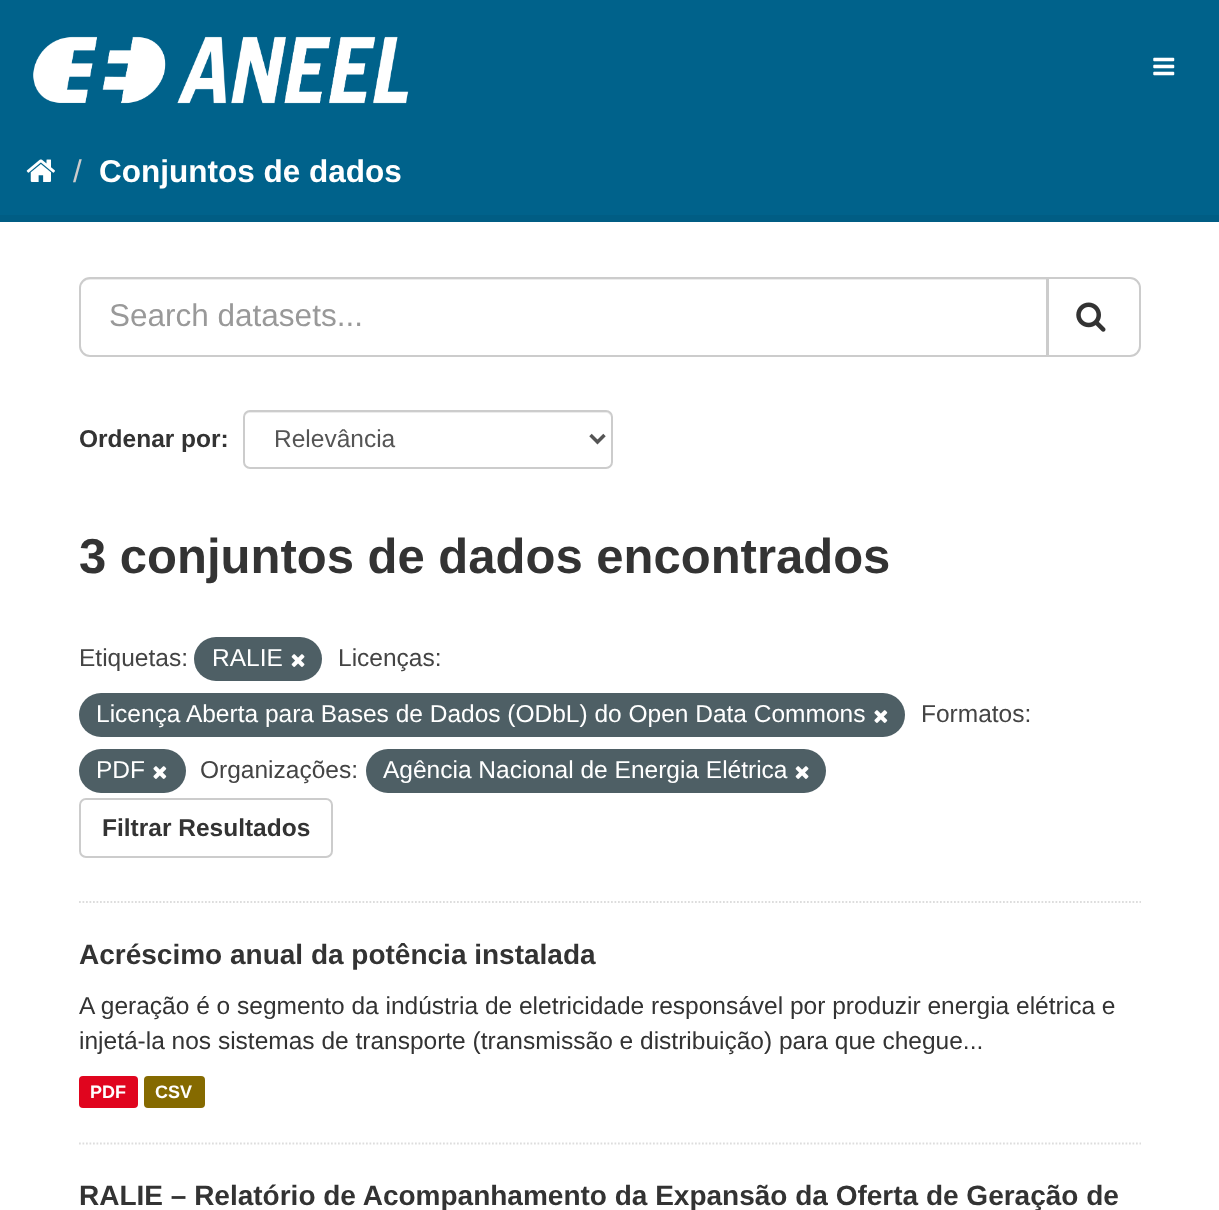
<svg xmlns="http://www.w3.org/2000/svg" width="1219" height="1210" viewBox="0 0 1219 1210">
  <rect width="100%" height="100%" fill="rgb(0,98,139)"/>
  <image x="33" y="36" width="376" height="68" href="pic1.png"/>
  <image x="1153" y="57" width="22" height="19" href="pic2.png"/>
  <image x="26" y="159" width="29" height="23" href="pic3.png"/>
  <text x="73" y="182" font-family="Liberation Sans" font-size="31.5" fill="rgb(204,204,204)">/</text>
  <text x="99" y="182" font-family="Liberation Sans" font-size="31.5" font-weight="bold" fill="rgb(255,255,255)">Conjuntos de dados</text>
  <rect x="-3.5" y="218.5" width="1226" height="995" fill="none" stroke="rgb(0,93,132)" stroke-width="7"/>
  <rect x="0" y="222" width="1219" height="988" fill="rgb(255,255,255)"/>
  <path d="M79 902H1141" fill="none" stroke="rgb(221,221,221)" stroke-width="1.8" stroke-dasharray="1.75 1.75"/>
  <path d="M89 280H1046V355H1047V278H90C86 278 83 280 82 284C83 282 86 280 89 280Z" fill="rgb(236,236,236)"/>
  <path d="M90 278H1047V356H90C84.5 356 80 351.5 80 346V288C80 282.5 84.5 278 90 278Z" fill="none" stroke="rgb(204,204,204)" stroke-width="2"/>
  <text x="109" y="326" font-family="Liberation Sans" font-size="31.5" fill="rgb(153,153,153)">Search datasets...</text>
  <path d="M1048 278H1130C1135.5 278 1140 282.5 1140 288V346C1140 351.5 1135.5 356 1130 356H1048Z" fill="rgb(255,255,255)" stroke="rgb(204,204,204)" stroke-width="2"/>
  <image x="1076" y="302" width="30" height="30" href="pic4.png"/>
  <text x="79" y="447" font-family="Liberation Sans" font-size="24.5" font-weight="bold" fill="rgb(51,51,51)">Ordenar por:</text>
  <path d="M250 413H606C608 413 611 415 611 418C611 415 610 411 606 411H250C246 411 245 415 245 418C245 415 247 413 250 413Z" fill="rgb(236,236,236)"/>
  <rect x="244" y="411" width="368" height="57" rx="6" fill="none" stroke="rgb(204,204,204)" stroke-width="2"/>
  <path d="M590.5 435L597.5 442L604.5 435" fill="none" stroke="rgb(85,85,85)" stroke-width="3.5"/>
  <text x="274" y="447" font-family="Liberation Sans" font-size="24.5" fill="rgb(85,85,85)">Relevância</text>
  <text x="79" y="573" font-family="Liberation Sans" font-size="49" font-weight="bold" fill="rgb(51,51,51)">3 conjuntos de dados encontrados</text>
  <text x="79" y="666" font-family="Liberation Sans" font-size="24.5" fill="rgb(68,68,68)">Etiquetas:</text>
  <rect x="194" y="637" width="128" height="44" rx="22" fill="rgb(78,95,101)"/>
  <text x="212" y="666" font-family="Liberation Sans" font-size="24.5" fill="rgb(255,255,255)">RALIE</text>
  <image x="291" y="654" width="14" height="13" href="pic5.png"/>
  <text x="338" y="666" font-family="Liberation Sans" font-size="24.5" fill="rgb(68,68,68)">Licenças:</text>
  <rect x="79" y="693" width="826" height="44" rx="22" fill="rgb(78,95,101)"/>
  <text x="96" y="722" font-family="Liberation Sans" font-size="24.5" fill="rgb(255,255,255)">Licença Aberta para Bases de Dados (ODbL) do Open Data Commons</text>
  <image x="874" y="710" width="14" height="13" href="pic6.png"/>
  <text x="921" y="722" font-family="Liberation Sans" font-size="24.5" fill="rgb(68,68,68)">Formatos:</text>
  <rect x="79" y="749" width="107" height="44" rx="22" fill="rgb(78,95,101)"/>
  <text x="96" y="778" font-family="Liberation Sans" font-size="24.5" fill="rgb(255,255,255)">PDF</text>
  <image x="153" y="766" width="14" height="13" href="pic6.png"/>
  <text x="200" y="778" font-family="Liberation Sans" font-size="24.5" fill="rgb(68,68,68)">Organizações:</text>
  <rect x="366" y="749" width="460" height="44" rx="22" fill="rgb(78,95,101)"/>
  <text x="383" y="778" font-family="Liberation Sans" font-size="24.5" fill="rgb(255,255,255)">Agência Nacional de Energia Elétrica</text>
  <image x="795" y="766" width="14" height="13" href="pic5.png"/>
  <rect x="80" y="799" width="252" height="58" rx="6" fill="none" stroke="rgb(204,204,204)" stroke-width="2"/>
  <text x="102" y="836" font-family="Liberation Sans" font-size="24.5" font-weight="bold" fill="rgb(51,51,51)">Filtrar Resultados</text>
  <path d="M79 1143.5H1141" fill="none" stroke="rgb(221,221,221)" stroke-width="1.8" stroke-dasharray="1.75 1.75"/>
  <text x="79" y="964" font-family="Liberation Sans" font-size="28" font-weight="bold" fill="rgb(51,51,51)">Acréscimo anual da potência instalada</text>
  <g font-family="Liberation Sans" font-size="24.5" fill="rgb(51,51,51)">
    <text>
      <tspan x="79" y="1014">A geração é o segmento da indústria de eletricidade responsável por produzir energia elétrica e</tspan>
      <tspan x="79" y="1049">injetá-la nos sistemas de transporte (transmissão e distribuição) para que chegue...</tspan>
    </text>
  </g>
  <rect x="79" y="1076" width="59" height="32" rx="4" fill="rgb(224,5,30)"/>
  <text x="90" y="1098" font-family="Liberation Sans" font-size="18" font-weight="bold" fill="rgb(255,255,255)">PDF</text>
  <rect x="144" y="1076" width="61" height="32" rx="4" fill="rgb(133,106,0)"/>
  <text x="155" y="1098" font-family="Liberation Sans" font-size="18" font-weight="bold" fill="rgb(255,255,255)">CSV</text>
  <text x="79" y="1205" font-family="Liberation Sans" font-size="28" font-weight="bold" fill="rgb(51,51,51)">RALIE – Relatório de Acompanhamento da Expansão da Oferta de Geração de</text>
</svg>
